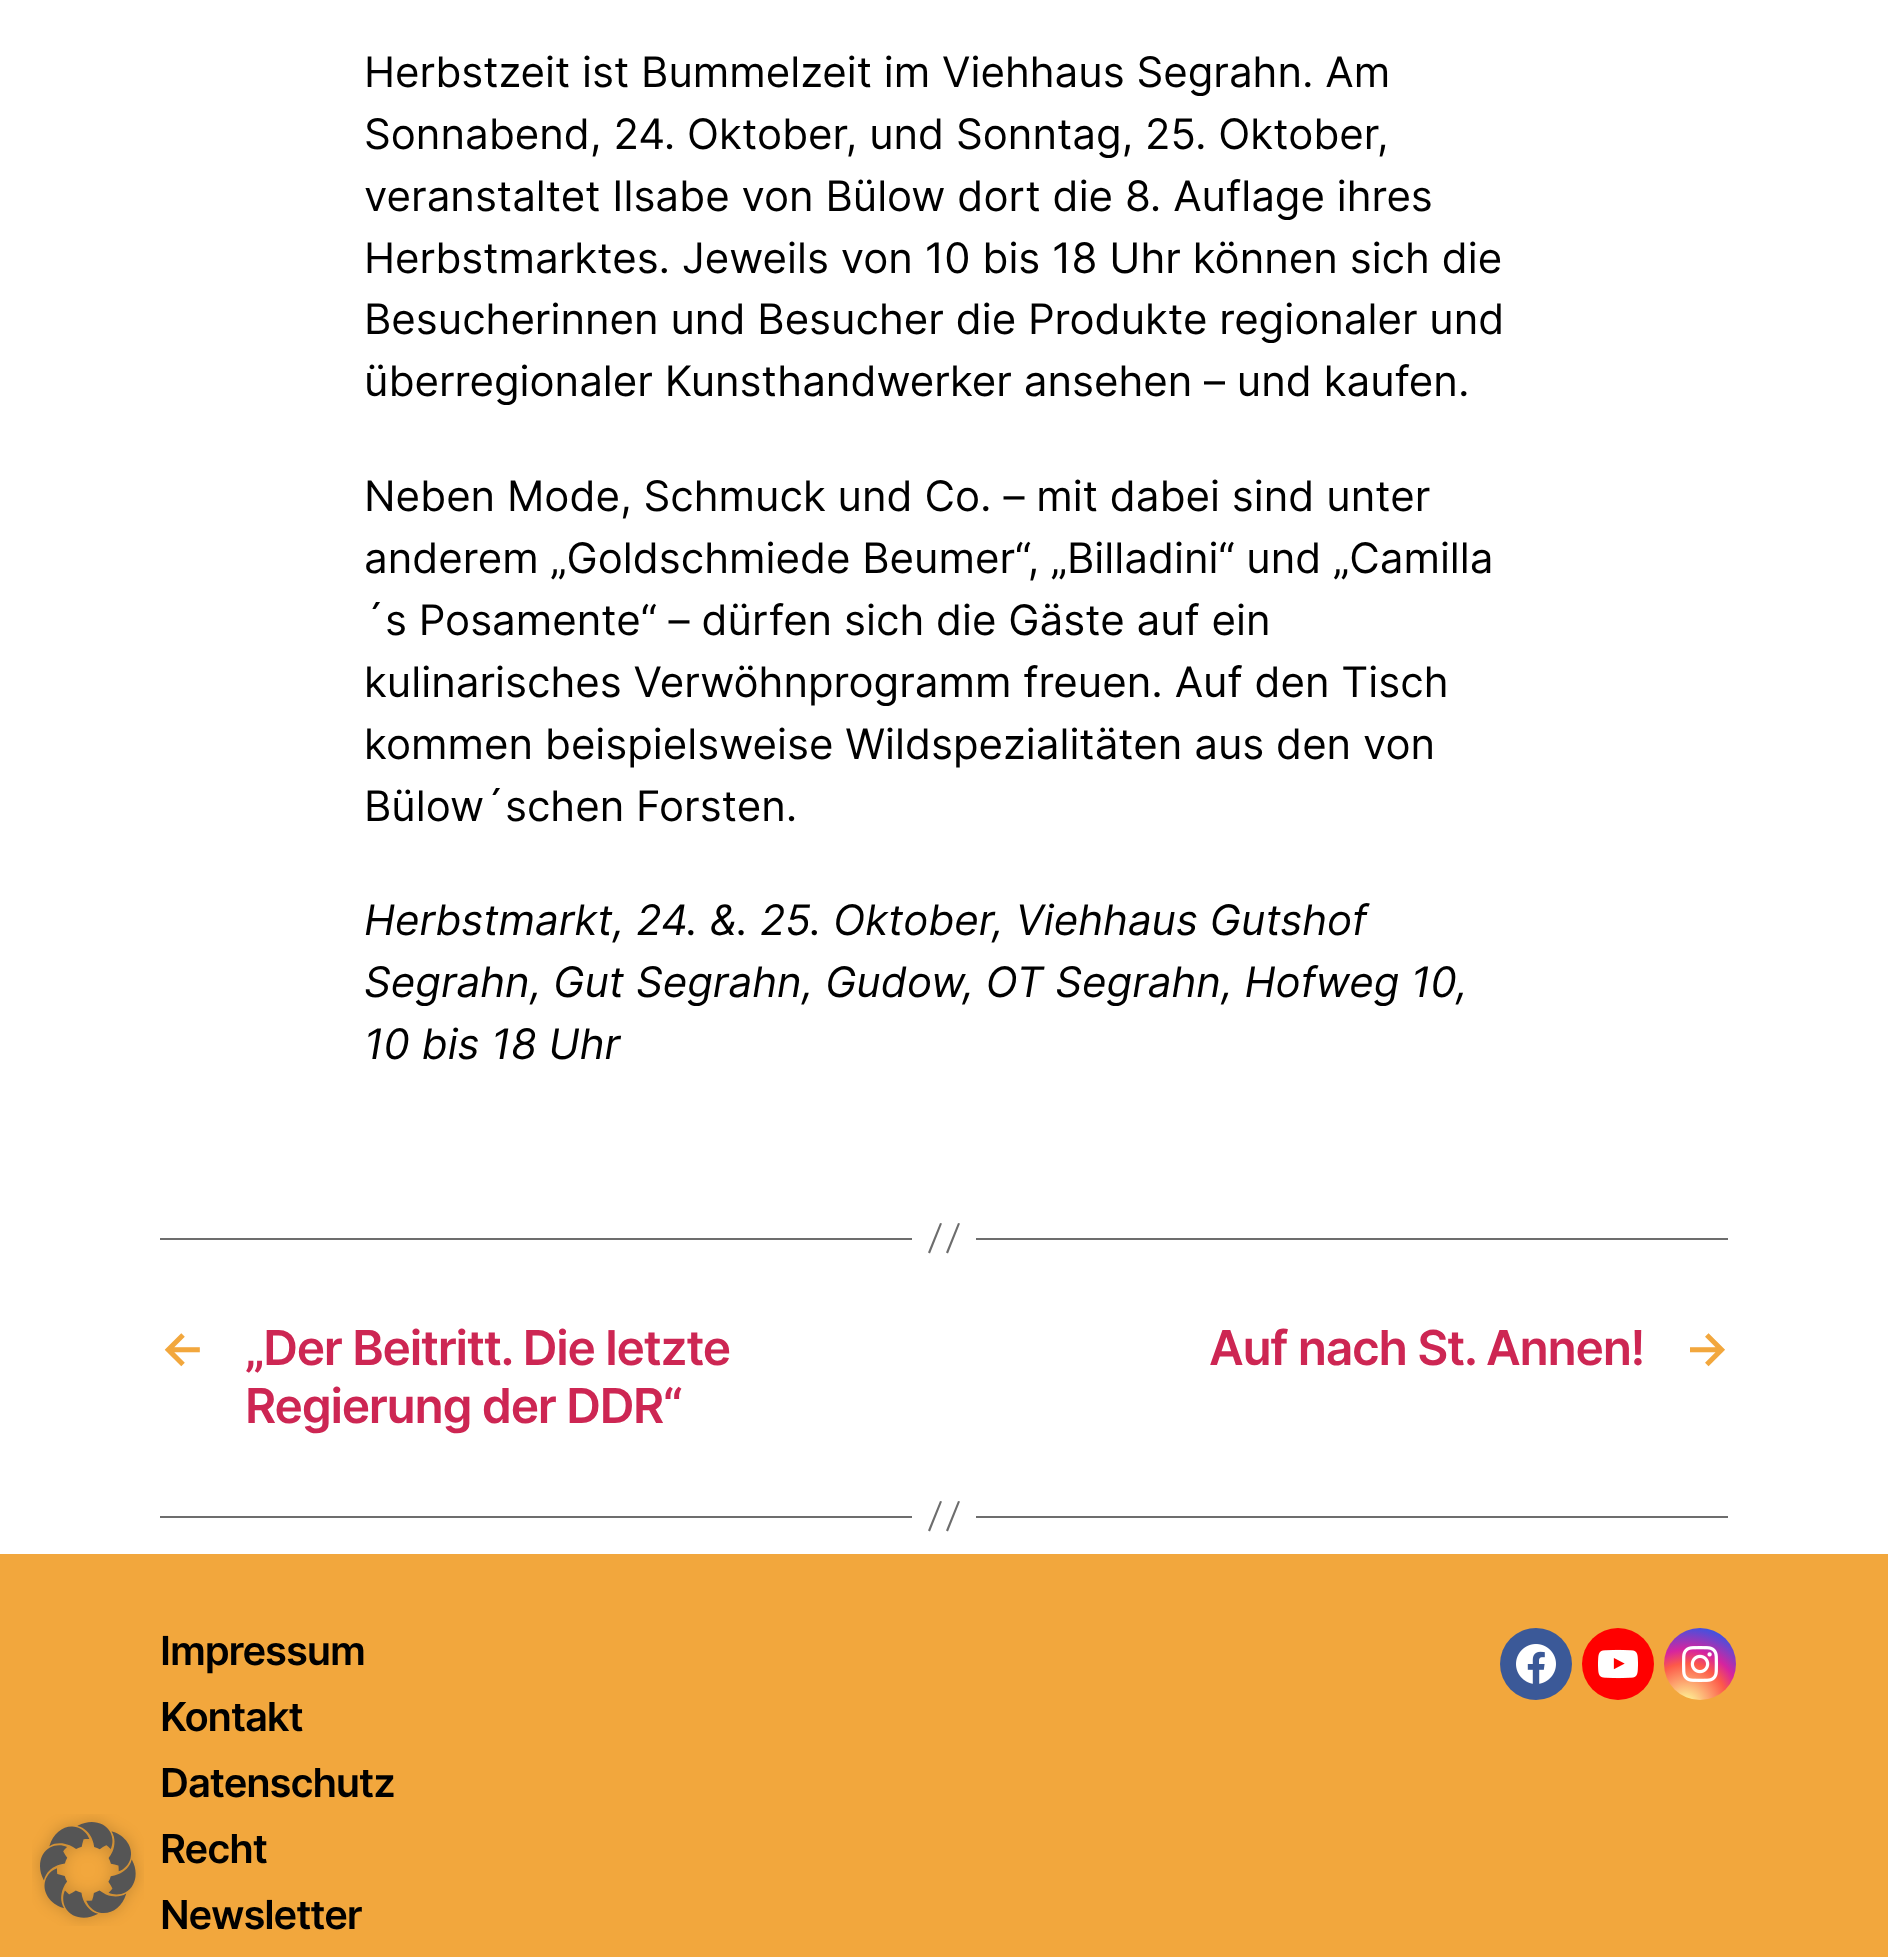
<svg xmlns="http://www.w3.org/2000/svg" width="1888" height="1957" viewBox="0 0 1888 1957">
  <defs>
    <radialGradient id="g1" gradientUnits="userSpaceOnUse" cx="1686" cy="1705" r="92"><stop offset="0" stop-color="rgb(253,244,151)"/><stop offset="0.05" stop-color="rgb(253,244,151)"/><stop offset="0.45" stop-color="rgb(253,89,73)"/><stop offset="0.6" stop-color="rgb(214,36,159)"/><stop offset="0.9" stop-color="rgb(40,90,235)"/></radialGradient>
  </defs>
  <rect width="100%" height="100%" fill="rgb(255,255,255)"/>
  <g font-family="Inter" font-size="42" fill="rgb(0,0,0)">
    <text>
      <tspan x="364" y="87">Herbstzeit ist Bummelzeit im Viehhaus Segrahn. Am</tspan>
      <tspan x="364" y="149">Sonnabend, 24. Oktober, und Sonntag, 25. Oktober,</tspan>
      <tspan x="364" y="211">veranstaltet Ilsabe von Bülow dort die 8. Auflage ihres</tspan>
      <tspan x="364" y="273">Herbstmarktes. Jeweils von 10 bis 18 Uhr können sich die</tspan>
      <tspan x="364" y="334">Besucherinnen und Besucher die Produkte regionaler und</tspan>
      <tspan x="364" y="396">überregionaler Kunsthandwerker ansehen – und kaufen.</tspan>
    </text>
    <text>
      <tspan x="364" y="511">Neben Mode, Schmuck und Co. – mit dabei sind unter</tspan>
      <tspan x="364" y="573">anderem „Goldschmiede Beumer“, „Billadini“ und „Camilla</tspan>
      <tspan x="364" y="635">´s Posamente“ – dürfen sich die Gäste auf ein</tspan>
      <tspan x="364" y="697">kulinarisches Verwöhnprogramm freuen. Auf den Tisch</tspan>
      <tspan x="364" y="759">kommen beispielsweise Wildspezialitäten aus den von</tspan>
      <tspan x="364" y="821">Bülow´schen Forsten.</tspan>
    </text>
  </g>
  <g font-family="Inter" font-size="42" font-style="italic" fill="rgb(0,0,0)">
    <text>
      <tspan x="364" y="935">Herbstmarkt, 24. &amp;. 25. Oktober, Viehhaus Gutshof</tspan>
      <tspan x="364" y="997">Segrahn, Gut Segrahn, Gudow, OT Segrahn, Hofweg 10,</tspan>
      <tspan x="364" y="1059">10 bis 18 Uhr</tspan>
    </text>
  </g>
  <rect x="976" y="1238" width="752" height="2" fill="rgb(109,109,109)"/>
  <rect x="160" y="1238" width="752" height="2" fill="rgb(109,109,109)"/>
  <path d="M940 1223L942 1223.5L930 1253.5L928 1252.5ZM958 1223L960 1223.5L948 1253.5L946 1252.5Z" fill="rgb(109,109,109)"/>
  <text x="160" y="1365" font-family="Inter" font-size="48" font-weight="600" letter-spacing="-1.3" fill="rgb(242,167,61)">←</text>
  <g font-family="Inter" font-size="48" font-weight="600" letter-spacing="-1.3" fill="rgb(205,38,83)">
    <text>
      <tspan x="245" y="1365">„Der Beitritt. Die letzte</tspan>
      <tspan x="245" y="1423">Regierung der DDR“</tspan>
    </text>
    <text x="1209" y="1365">Auf nach St. Annen!</text>
  </g>
  <text x="1684" y="1365" font-family="Inter" font-size="48" font-weight="600" letter-spacing="-1.3" fill="rgb(242,167,61)">→</text>
  <rect x="976" y="1516" width="752" height="2" fill="rgb(109,109,109)"/>
  <rect x="160" y="1516" width="752" height="2" fill="rgb(109,109,109)"/>
  <path d="M940 1501L942 1501.5L930 1531.5L928 1530.5ZM958 1501L960 1501.5L948 1531.5L946 1530.5Z" fill="rgb(109,109,109)"/>
  <rect x="0" y="1554" width="1888" height="403" fill="rgb(242,167,61)"/>
  <image x="32" y="1814" width="112" height="112" href="pic1.png"/>
  <g font-family="Inter" font-size="40" font-weight="600" letter-spacing="-1.1" fill="rgb(0,0,0)">
    <text>
      <tspan x="160" y="1665">Impressum</tspan>
      <tspan x="160" y="1731">Kontakt</tspan>
      <tspan x="160" y="1797">Datenschutz</tspan>
      <tspan x="160" y="1863">Recht</tspan>
      <tspan x="160" y="1929">Newsletter</tspan>
    </text>
  </g>
  <circle cx="1536" cy="1664" r="36" fill="rgb(59,89,152)"/>
  <image x="1516" y="1644" width="40" height="40" href="pic2.png"/>
  <circle cx="1618" cy="1664" r="36" fill="rgb(255,0,0)"/>
  <image x="1598" y="1649" width="40" height="30" href="pic3.png"/>
  <circle cx="1700" cy="1664" r="36" fill="url(#g1)"/>
  <image x="1682" y="1646" width="36" height="36" href="pic4.png"/>
</svg>
